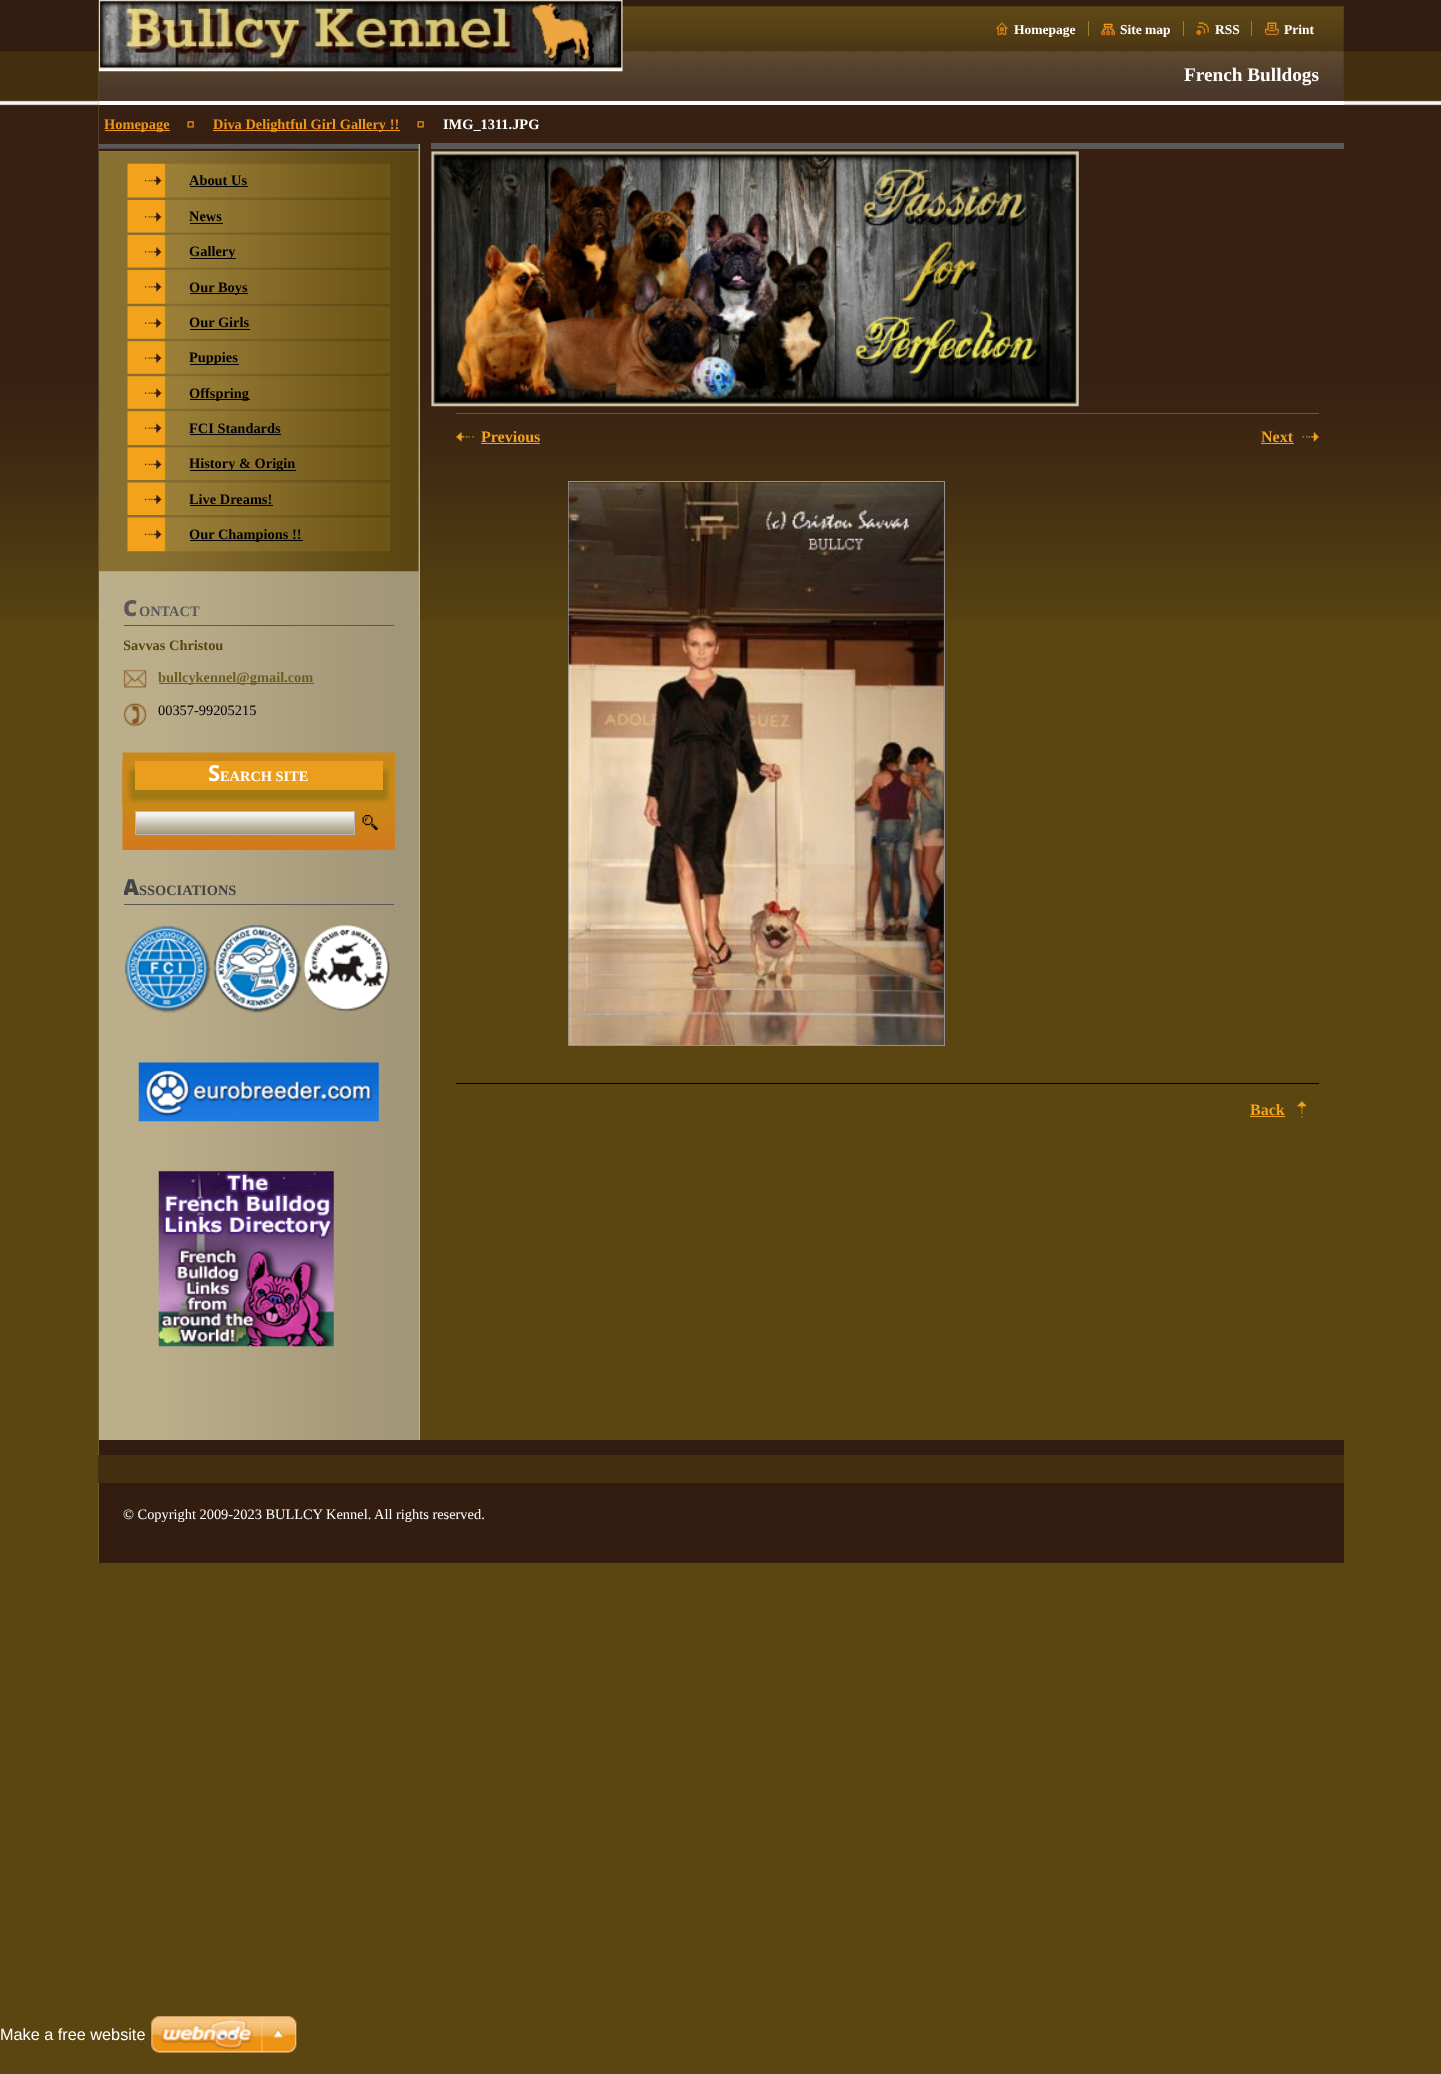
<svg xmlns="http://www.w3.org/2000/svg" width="1441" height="2074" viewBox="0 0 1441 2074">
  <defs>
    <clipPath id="clip1"><rect x="124" y="630" width="270" height="98"/></clipPath>
    <clipPath id="clip2"><rect x="124" y="875" width="270" height="150"/></clipPath>
  </defs>
  <rect width="100%" height="100%" fill="rgb(91,70,17)"/>
  <image x="0" y="0" width="1441" height="620" href="pic1.png"/>
  <image x="98" y="0" width="322" height="1563" href="pic2.png"/>
  <image x="98" y="0" width="1246" height="102" href="pic3.png"/>
  <rect x="99" y="101" width="1245" height="4" fill="rgb(255,255,255)"/>
  <image x="98" y="0" width="525" height="72" href="pic4.png"/>
  <image x="996" y="22" width="12" height="14" href="pic5.png"/>
  <text x="1014" y="34" font-family="Liberation Serif" font-size="13.5" font-weight="bold" fill="rgb(255,255,255)">Homepage</text>
  <image x="1101" y="23" width="14" height="13" href="pic6.png"/>
  <text x="1120" y="34" font-family="Liberation Serif" font-size="13.5" font-weight="bold" fill="rgb(255,255,255)">Site map</text>
  <rect x="1088" y="21" width="1" height="15" fill="rgb(154,126,55)"/>
  <image x="1196" y="22" width="13" height="14" href="pic7.png"/>
  <text x="1215" y="34" font-family="Liberation Serif" font-size="13.5" font-weight="bold" fill="rgb(255,255,255)">RSS</text>
  <rect x="1183" y="21" width="1" height="15" fill="rgb(154,126,55)"/>
  <image x="1265" y="22" width="14" height="14" href="pic8.png"/>
  <text x="1284" y="34" font-family="Liberation Serif" font-size="13.5" font-weight="bold" fill="rgb(255,255,255)">Print</text>
  <rect x="1251" y="21" width="1" height="15" fill="rgb(154,126,55)"/>
  <text x="1184" y="81" font-family="Liberation Serif" font-size="19.25" font-weight="bold" fill="rgb(255,255,255)">French Bulldogs</text>
  <rect x="99" y="105" width="1245" height="36" fill="rgb(55,32,18)"/>
  <rect x="105" y="130" width="65" height="1" fill="rgb(237,149,28)"/>
  <text x="104" y="129" font-family="Liberation Serif" font-size="14.4" font-weight="bold" fill="rgb(237,149,28)">Homepage</text>
  <image x="187" y="121" width="7" height="7" href="pic9.png"/>
  <rect x="213" y="130" width="187" height="1" fill="rgb(237,149,28)"/>
  <text x="213" y="129" font-family="Liberation Serif" font-size="14.4" font-weight="bold" fill="rgb(237,149,28)">Diva Delightful Girl Gallery !!</text>
  <image x="417" y="121" width="7" height="7" href="pic9.png"/>
  <text x="443" y="129" font-family="Liberation Serif" font-size="14.4" font-weight="bold" fill="rgb(255,255,255)">IMG_1311.JPG</text>
  <rect x="99" y="141" width="321" height="3" fill="rgb(55,32,18)"/>
  <image x="99" y="143" width="320" height="9" href="pic10.png"/>
  <image x="99" y="151" width="320" height="421" href="pic11.png"/>
  <image x="127" y="163" width="263" height="35" href="pic12.png"/>
  <image x="144" y="176" width="18" height="9" href="pic13.png"/>
  <text x="189" y="185" font-family="Liberation Serif" font-size="14.4" font-weight="bold" fill="rgb(0,0,0)">About Us</text>
  <rect x="190" y="186" width="58" height="1" fill="rgb(0,0,0)"/>
  <image x="127" y="200" width="263" height="33" href="pic14.png"/>
  <image x="144" y="212" width="18" height="10" href="pic15.png"/>
  <text x="189" y="221" font-family="Liberation Serif" font-size="14.4" font-weight="bold" fill="rgb(0,0,0)">News</text>
  <rect x="190" y="223" width="33" height="1" fill="rgb(0,0,0)"/>
  <image x="127" y="235" width="263" height="33" href="pic16.png"/>
  <image x="144" y="247" width="18" height="10" href="pic15.png"/>
  <rect x="190" y="258" width="46" height="1" fill="rgb(0,0,0)"/>
  <text x="189" y="256" font-family="Liberation Serif" font-size="14.4" font-weight="bold" fill="rgb(0,0,0)">Gallery</text>
  <image x="127" y="270" width="263" height="34" href="pic17.png"/>
  <image x="144" y="282" width="18" height="10" href="pic15.png"/>
  <rect x="190" y="293" width="58" height="1" fill="rgb(0,0,0)"/>
  <text x="189" y="292" font-family="Liberation Serif" font-size="14.4" font-weight="bold" fill="rgb(0,0,0)">Our Boys</text>
  <image x="127" y="306" width="263" height="33" href="pic18.png"/>
  <image x="144" y="318" width="18" height="10" href="pic19.png"/>
  <text x="189" y="327" font-family="Liberation Serif" font-size="14.4" font-weight="bold" fill="rgb(0,0,0)">Our Girls</text>
  <rect x="190" y="329" width="60" height="1" fill="rgb(0,0,0)"/>
  <image x="127" y="341" width="263" height="33" href="pic20.png"/>
  <image x="144" y="353" width="18" height="10" href="pic19.png"/>
  <rect x="190" y="364" width="49" height="1" fill="rgb(0,0,0)"/>
  <text x="189" y="362" font-family="Liberation Serif" font-size="14.4" font-weight="bold" fill="rgb(0,0,0)">Puppies</text>
  <image x="127" y="376" width="263" height="33" href="pic21.png"/>
  <image x="144" y="388" width="18" height="10" href="pic19.png"/>
  <rect x="190" y="399" width="60" height="1" fill="rgb(0,0,0)"/>
  <text x="189" y="398" font-family="Liberation Serif" font-size="14.4" font-weight="bold" fill="rgb(0,0,0)">Offspring</text>
  <image x="127" y="411" width="263" height="34" href="pic22.png"/>
  <image x="144" y="423" width="18" height="10" href="pic19.png"/>
  <text x="189" y="433" font-family="Liberation Serif" font-size="14.4" font-weight="bold" fill="rgb(0,0,0)">FCI Standards</text>
  <rect x="190" y="434" width="91" height="1" fill="rgb(0,0,0)"/>
  <image x="127" y="447" width="263" height="33" href="pic23.png"/>
  <image x="144" y="459" width="18" height="10" href="pic24.png"/>
  <rect x="190" y="470" width="106" height="1" fill="rgb(0,0,0)"/>
  <text x="189" y="468" font-family="Liberation Serif" font-size="14.4" font-weight="bold" fill="rgb(0,0,0)">History &amp; Origin</text>
  <image x="127" y="482" width="263" height="33" href="pic25.png"/>
  <image x="144" y="494" width="18" height="10" href="pic24.png"/>
  <text x="189" y="504" font-family="Liberation Serif" font-size="14.4" font-weight="bold" fill="rgb(0,0,0)">Live Dreams!</text>
  <rect x="190" y="505" width="83" height="1" fill="rgb(0,0,0)"/>
  <image x="127" y="517" width="263" height="35" href="pic26.png"/>
  <image x="144" y="529" width="18" height="10" href="pic24.png"/>
  <rect x="190" y="540" width="113" height="1" fill="rgb(0,0,0)"/>
  <text x="189" y="539" font-family="Liberation Serif" font-size="14.4" font-weight="bold" fill="rgb(0,0,0)">Our Champions !!</text>
  <rect x="124" y="625" width="270" height="1" fill="rgb(92,88,89)"/>
  <text x="123" y="616" font-family="Noto Sans" font-size="22" font-weight="900" fill="rgb(92,88,89)">C</text>
  <text x="139" y="616" font-family="Liberation Serif" font-size="14.4" font-weight="bold" fill="rgb(92,88,89)">ONTACT</text>
  <g clip-path="url(#clip1)">
    <text x="123" y="650" font-family="Liberation Serif" font-size="14.4" font-weight="bold" fill="rgb(91,70,17)">Savvas Christou</text>
  </g>
  <image x="123" y="670" width="24" height="18" href="pic27.png"/>
  <rect x="159" y="683" width="117" height="1" fill="rgb(112,93,38)"/>
  <text x="158" y="682" font-family="Liberation Serif" font-size="14.4" font-weight="bold" fill="rgb(112,93,38)">bullcykennel@gmail.com</text>
  <rect x="276" y="683" width="38" height="1" fill="rgb(112,93,38)"/>
  <image x="123" y="703" width="24" height="24" href="pic28.png"/>
  <text x="158" y="715" font-family="Liberation Serif" font-size="14.4" fill="rgb(0,0,0)">00357-99205215</text>
  <image x="122" y="752" width="273" height="98" href="pic29.png"/>
  <rect x="134" y="775" width="249" height="20" fill="rgb(160,120,20)"/>
  <image x="122" y="765" width="273" height="40" href="pic30.png"/>
  <image x="122" y="765" width="268" height="10" href="pic31.png"/>
  <rect x="135" y="761" width="248" height="29" fill="rgb(235,158,29)"/>
  <text x="208" y="781" font-family="Noto Sans" font-size="22" font-weight="bold" fill="rgb(255,255,255)">S</text>
  <text x="220" y="781" font-family="Liberation Serif" font-size="14.4" font-weight="bold" fill="rgb(255,255,255)">EARCH SITE</text>
  <image x="122" y="795" width="268" height="10" href="pic32.png"/>
  <image x="136" y="812" width="218" height="22" href="pic33.png"/>
  <rect x="135.5" y="811.5" width="219" height="23" fill="none" stroke="rgb(184,184,184)"/>
  <image x="362" y="815" width="16" height="15" href="pic34.png"/>
  <rect x="124" y="904" width="270" height="1" fill="rgb(90,88,89)"/>
  <g clip-path="url(#clip2)">
    <text x="123" y="895" font-family="Noto Sans" font-size="22" font-weight="900" fill="rgb(69,69,69)">A</text>
  </g>
  <text x="139" y="895" font-family="Liberation Serif" font-size="14.4" font-weight="bold" fill="rgb(69,69,69)">SSOCIATIONS</text>
  <image x="125" y="926" width="87" height="87" href="pic35.png"/>
  <image x="213" y="925" width="89" height="88" href="pic36.png"/>
  <image x="303" y="925" width="87" height="87" href="pic37.png"/>
  <image x="138" y="1062" width="241" height="60" href="pic38.png"/>
  <image x="158" y="1171" width="176" height="176" href="pic39.png"/>
  <rect x="431" y="143" width="913" height="6" fill="rgb(91,88,88)"/>
  <image x="431" y="151" width="648" height="256" href="pic40.png"/>
  <rect x="456" y="413" width="863" height="1" fill="rgb(90,88,89)"/>
  <image x="456" y="432" width="18" height="10" href="pic41.png"/>
  <text x="481" y="442" font-family="Liberation Serif" font-size="16" font-weight="bold" fill="rgb(243,162,28)">Previous</text>
  <rect x="481" y="443" width="59" height="1" fill="rgb(243,162,28)"/>
  <image x="1302" y="432" width="17" height="10" href="pic42.png"/>
  <text x="1261" y="442" font-family="Liberation Serif" font-size="16" font-weight="bold" fill="rgb(243,162,28)">Next</text>
  <rect x="1261" y="443" width="33" height="1" fill="rgb(243,162,28)"/>
  <rect x="568.5" y="481.5" width="376" height="564" fill="none" stroke="rgb(147,147,147)"/>
  <image x="568" y="482" width="376" height="563" href="pic43.png"/>
  <rect x="456" y="1083" width="863" height="1" fill="rgb(0,0,0)"/>
  <text x="1250" y="1115" font-family="Liberation Serif" font-size="16" font-weight="bold" fill="rgb(243,162,28)">Back</text>
  <rect x="1250" y="1116" width="35" height="1" fill="rgb(243,162,28)"/>
  <image x="1297" y="1101" width="10" height="17" href="pic44.png"/>
  <rect x="99" y="1440" width="1245" height="123" fill="rgb(51,29,16)"/>
  <rect x="98" y="1455" width="1246" height="28" fill="rgb(68,46,16)"/>
  <text x="123" y="1519" font-family="Liberation Serif" font-size="14.4" fill="rgb(255,255,255)">© Copyright 2009-2023 BULLCY Kennel. All rights reserved.</text>
  <text x="0" y="2040" font-family="Liberation Sans" font-size="16.25" fill="rgb(255,255,255)">Make a free website</text>
  <image x="150" y="2015" width="148" height="39" href="pic45.png"/>
</svg>
